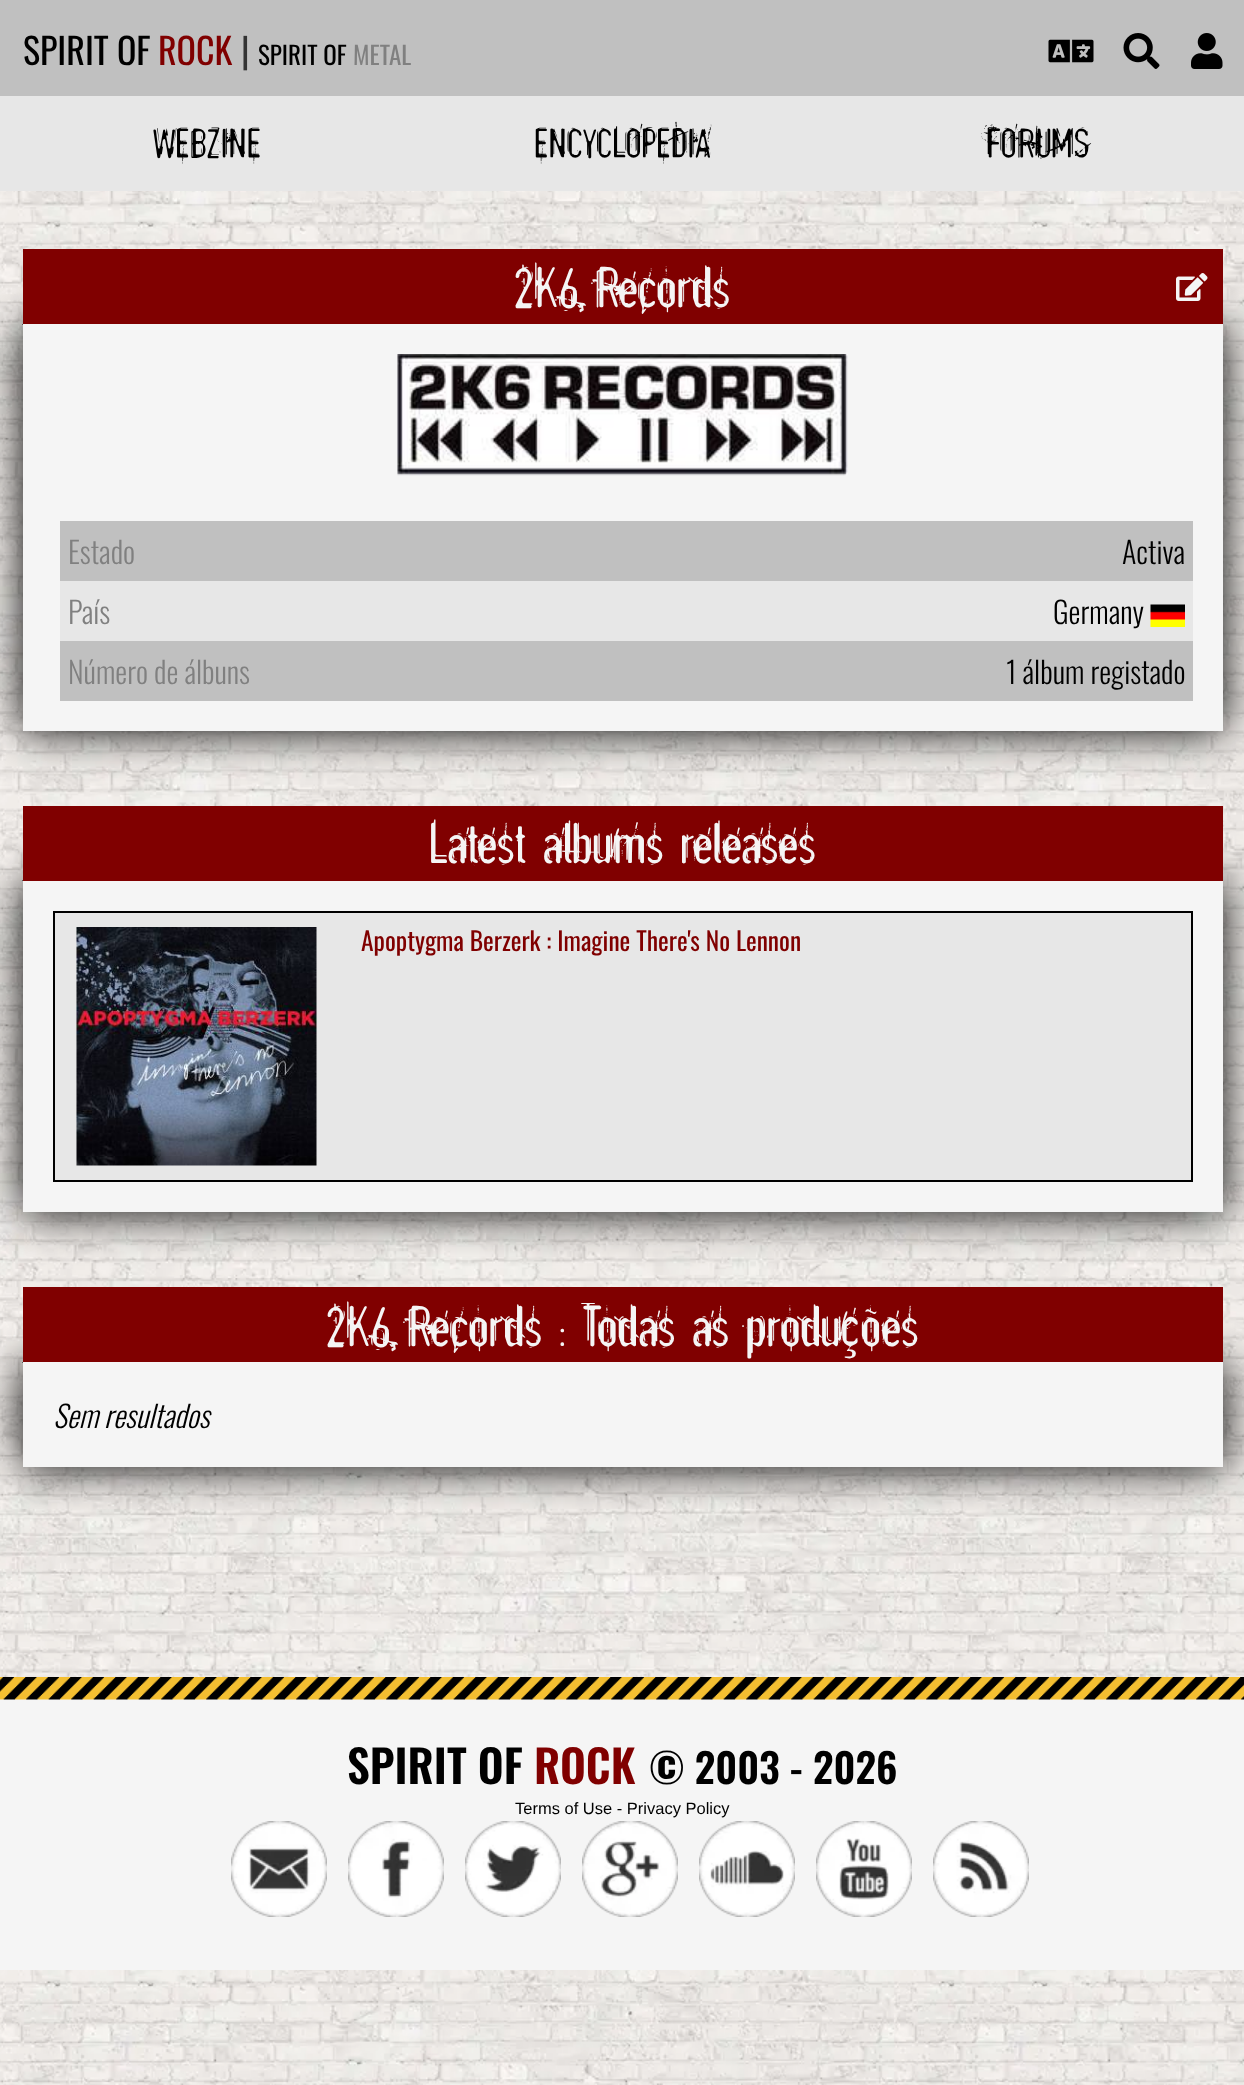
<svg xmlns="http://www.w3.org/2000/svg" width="1244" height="2085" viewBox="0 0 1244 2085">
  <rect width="100%" height="100%" fill="rgb(255,255,255)"/>
  <image x="0" y="191" width="1244" height="1894" href="pic1.png"/>
  <rect x="0" y="0" width="1244" height="96" fill="rgb(192,192,192)"/>
  <text x="23" y="65" font-family="Oswald" font-size="36" fill="rgb(0,0,0)">SPIRIT OF</text>
  <text x="158" y="65" font-family="Oswald" font-size="36" fill="rgb(128,0,0)">ROCK</text>
  <text x="241" y="65" font-family="Oswald" font-size="36" fill="rgb(51,51,51)">|</text>
  <text x="258" y="65" font-family="Oswald" font-size="25" fill="rgb(0,0,0)">SPIRIT OF</text>
  <text x="353" y="65" font-family="Oswald" font-size="25" fill="rgb(128,128,128)">METAL</text>
  <image x="1048" y="39" width="46" height="24" href="pic2.png"/>
  <image x="1123" y="33" width="37" height="36" href="pic3.png"/>
  <image x="1191" y="33" width="32" height="36" href="pic4.png"/>
  <rect x="0" y="96" width="1244" height="95" fill="rgb(231,231,231)"/>
  <g font-family="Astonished" font-size="45" fill="rgb(0,0,0)">
    <text x="153" y="158">WEBZINE</text>
    <text x="534" y="158">ENCYCLOPEDIA</text>
    <text x="986" y="158">FORUMS</text>
  </g>
  <path d="M22 324H82L52 354Z" fill="rgb(0,0,0)"/>
  <rect x="23" y="324" width="1200" height="407" fill="rgb(0,0,0)" filter="blur(22.5px)"/>
  <rect x="23" y="249" width="1200" height="75" fill="rgb(128,0,0)"/>
  <text x="514" y="308" font-family="Astonished" font-size="63" fill="rgb(245,245,245)">2K6 Records</text>
  <image x="1176" y="273" width="32" height="28" href="pic5.png"/>
  <rect x="23" y="324" width="1200" height="407" fill="rgb(245,245,245)"/>
  <image x="397" y="354" width="451" height="122" href="pic6.png"/>
  <rect x="60" y="521" width="1133" height="60" fill="rgb(192,192,192)"/>
  <text x="68" y="564" font-family="Oswald" font-size="30" font-weight="300" fill="rgb(128,128,128)">Estado</text>
  <text x="1122" y="564" font-family="Oswald" font-size="30" font-weight="300" fill="rgb(0,0,0)">Activa</text>
  <rect x="60" y="581" width="1133" height="60" fill="rgb(231,231,231)"/>
  <text x="68" y="624" font-family="Oswald" font-size="30" font-weight="300" fill="rgb(128,128,128)">País</text>
  <text x="1053" y="624" font-family="Oswald" font-size="30" font-weight="300" fill="rgb(0,0,0)">Germany</text>
  <image x="1150" y="604" width="35" height="23" href="pic7.png"/>
  <rect x="60" y="641" width="1133" height="60" fill="rgb(192,192,192)"/>
  <text x="68" y="684" font-family="Oswald" font-size="30" font-weight="300" fill="rgb(128,128,128)">Número de álbuns</text>
  <text x="1006" y="684" font-family="Oswald" font-size="30" font-weight="300" fill="rgb(0,0,0)">1 álbum registado</text>
  <path d="M22 880H82L52 910Z" fill="rgb(0,0,0)"/>
  <rect x="23" y="881" width="1200" height="331" fill="rgb(0,0,0)" filter="blur(22.5px)"/>
  <rect x="23" y="806" width="1200" height="75" fill="rgb(128,0,0)"/>
  <text x="429" y="864" font-family="Astonished" font-size="63" fill="rgb(245,245,245)">Latest albums releases</text>
  <rect x="23" y="881" width="1200" height="331" fill="rgb(245,245,245)"/>
  <rect x="54" y="912" width="1138" height="269" fill="rgb(231,231,231)" stroke="rgb(0,0,0)" stroke-width="2"/>
  <image x="76" y="927" width="241" height="239" href="pic8.png"/>
  <text x="361" y="951" font-family="Oswald" font-size="25.5" fill="rgb(128,0,0)">Apoptygma Berzerk : Imagine There's No Lennon</text>
  <path d="M22 1362H82L52 1392Z" fill="rgb(0,0,0)"/>
  <rect x="23" y="1362" width="1200" height="105" fill="rgb(0,0,0)" filter="blur(22.5px)"/>
  <rect x="23" y="1287" width="1200" height="75" fill="rgb(128,0,0)"/>
  <text x="326" y="1347" font-family="Astonished" font-size="63" fill="rgb(245,245,245)">2K6 Records : Todas as produções</text>
  <rect x="23" y="1362" width="1200" height="105" fill="rgb(245,245,245)"/>
  <text x="53" y="1428" font-family="Oswald" font-size="30" font-weight="300" font-style="italic" fill="rgb(0,0,0)">Sem resultados</text>
  <rect x="0" y="1699" width="1244" height="271" fill="rgb(245,245,245)"/>
  <image x="0" y="1677" width="1244" height="23" href="pic9.png"/>
  <text x="347" y="1784" font-family="Oswald" font-size="45" font-weight="600" fill="rgb(0,0,0)">SPIRIT OF</text>
  <text x="534" y="1784" font-family="Oswald" font-size="45" font-weight="600" fill="rgb(128,0,0)">ROCK</text>
  <text x="649" y="1784" font-family="Oswald" font-size="40.5" font-weight="600" fill="rgb(0,0,0)">© 2003 - 2026</text>
  <text x="515" y="1814" font-family="Liberation Sans" font-size="16.5" fill="rgb(0,0,0)">Terms of Use - Privacy Policy</text>
  <image x="231" y="1821" width="96" height="96" href="pic10.png"/>
  <image x="348" y="1821" width="96" height="96" href="pic11.png"/>
  <image x="465" y="1821" width="96" height="96" href="pic12.png"/>
  <image x="582" y="1821" width="96" height="96" href="pic13.png"/>
  <image x="699" y="1821" width="96" height="96" href="pic14.png"/>
  <image x="816" y="1821" width="96" height="96" href="pic15.png"/>
  <image x="933" y="1821" width="96" height="96" href="pic16.png"/>
</svg>
